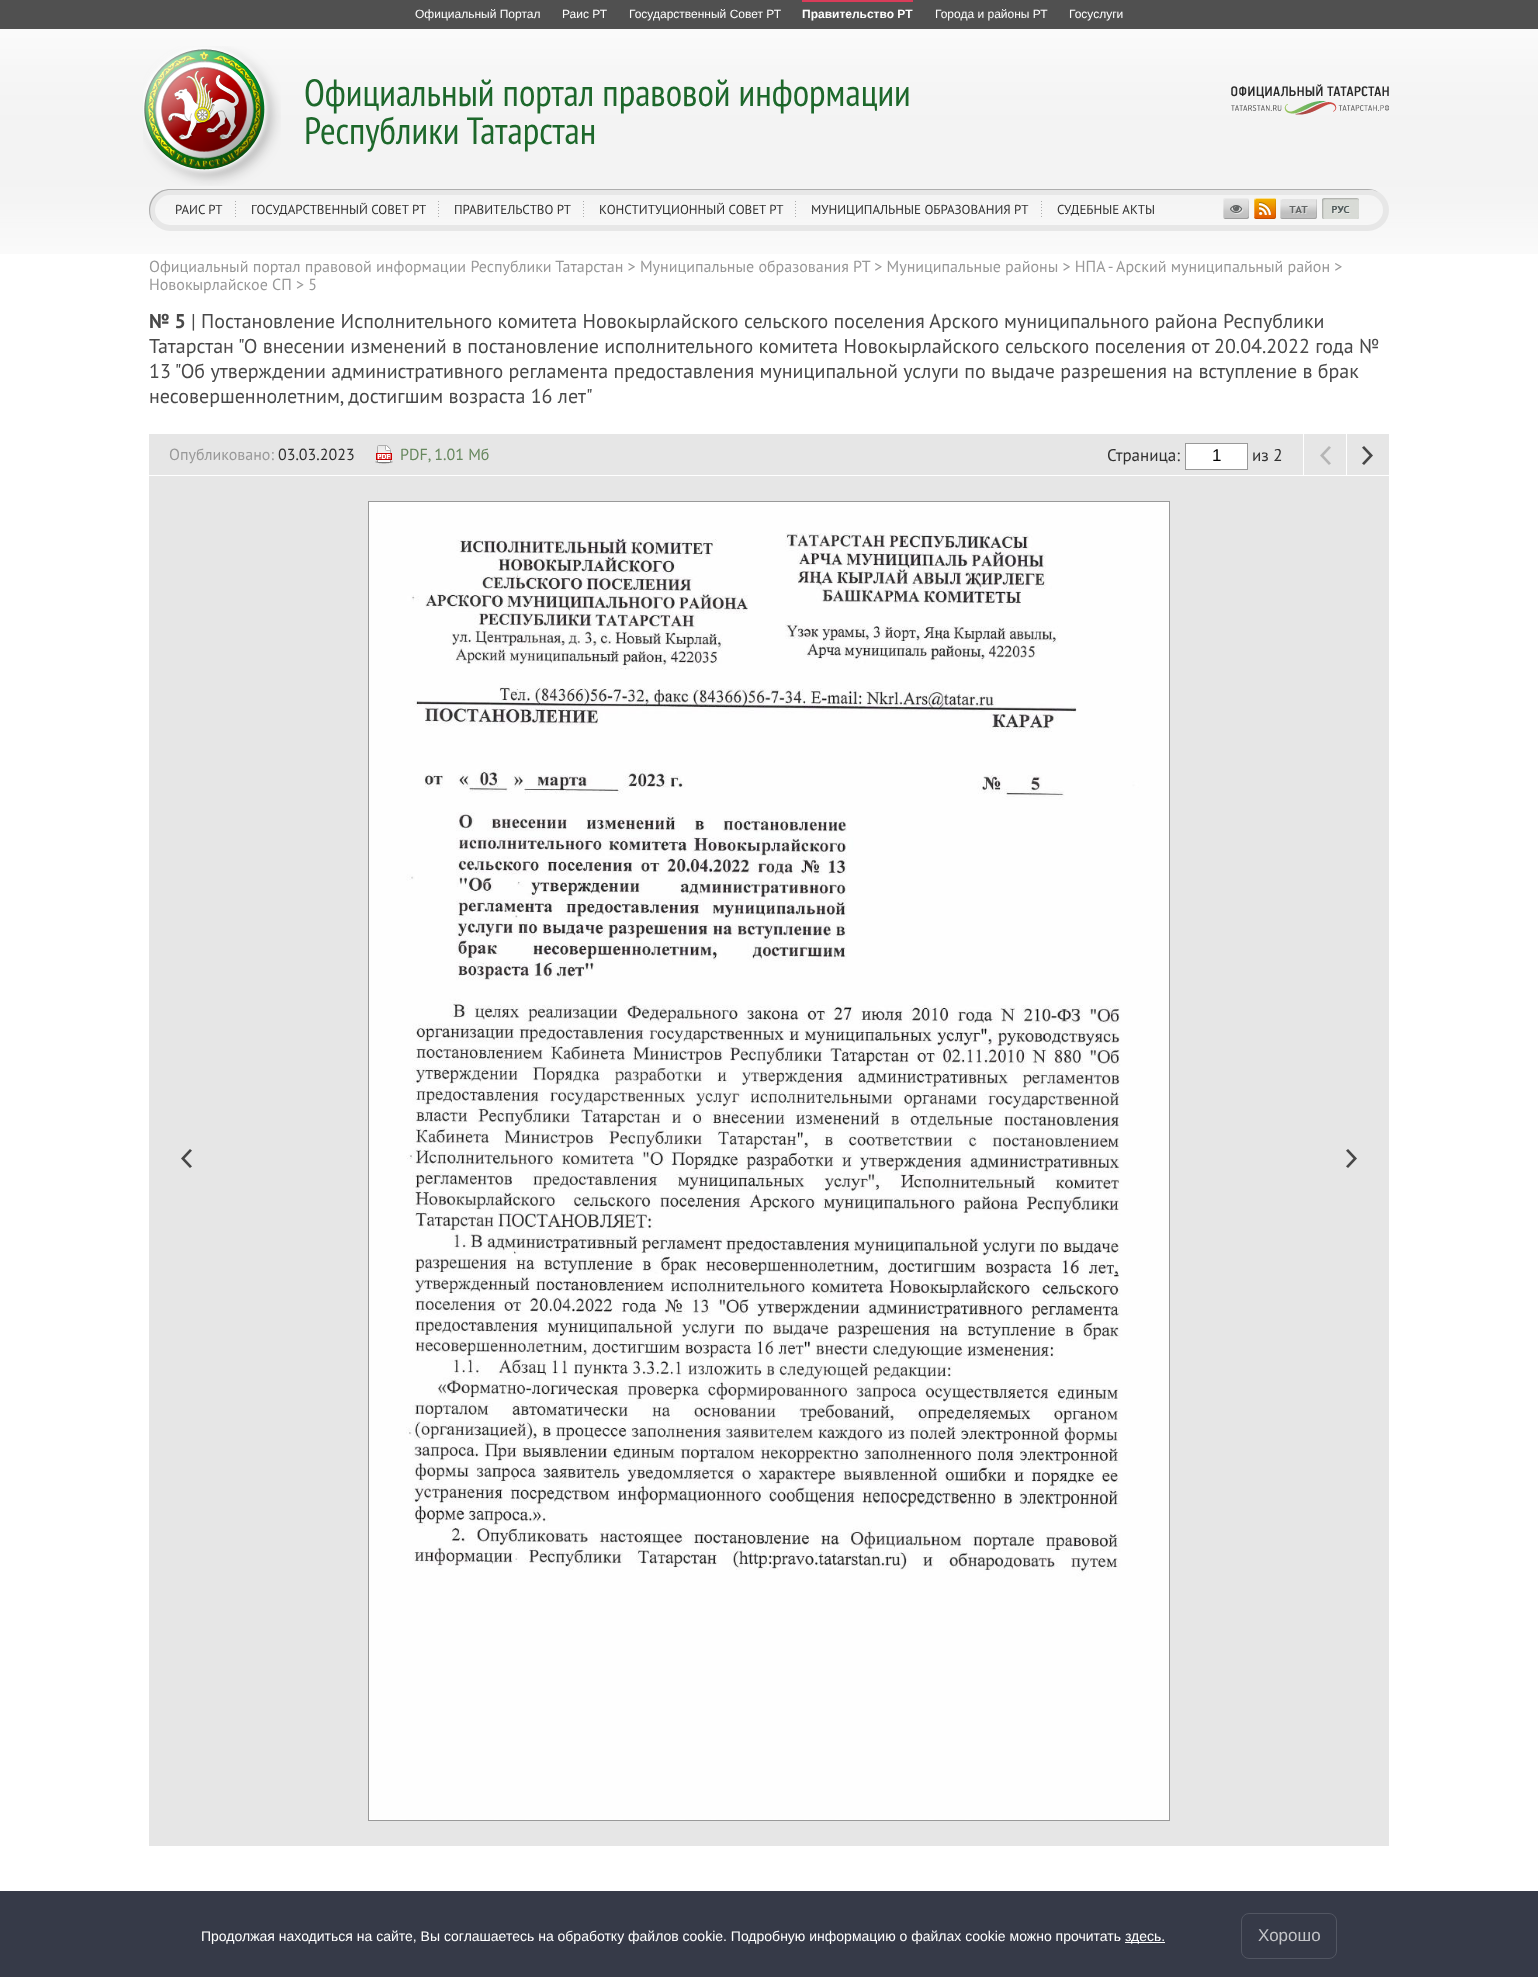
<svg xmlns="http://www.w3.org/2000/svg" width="1538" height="1977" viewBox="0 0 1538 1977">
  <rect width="100%" height="100%" fill="rgb(255,255,255)"/>
  <rect x="0" y="0" width="1538" height="29" fill="rgb(80,80,80)"/>
  <g font-family="Liberation Sans" font-size="12" fill="rgb(255,255,255)">
    <text x="415" y="18">Официальный Портал</text>
    <text x="562" y="18">Раис РТ</text>
    <text x="629" y="18">Государственный Совет РТ</text>
  </g>
  <rect x="802" y="0" width="111" height="2" fill="rgb(217,60,89)"/>
  <text x="802" y="18" font-family="Liberation Sans" font-size="12" font-weight="bold" fill="rgb(255,255,255)">Правительство РТ</text>
  <g font-family="Liberation Sans" font-size="12" fill="rgb(255,255,255)">
    <text x="935" y="18">Города и районы РТ</text>
    <text x="1069" y="18">Госуслуги</text>
  </g>
  <image x="0" y="29" width="1538" height="225" href="pic1.png"/>
  <image x="143" y="46" width="138" height="140" href="pic2.png"/>
  <g font-family="PT Sans Narrow" font-size="38" fill="rgb(29,104,43)">
    <text>
      <tspan x="304" y="106">Официальный портал правовой информации</tspan>
      <tspan x="304" y="144">Республики Татарстан</tspan>
    </text>
  </g>
  <image x="1231" y="84" width="158" height="31" href="pic3.png"/>
  <rect x="152" y="192" width="1234" height="36" rx="18" fill="none" stroke="rgb(231,231,231)" stroke-width="6"/>
  <path d="M171 190H1373L1378 192C1375 190 1372 189 1368 189H170C158 189 149 198 149 210C149 215 150 219 153 222C146 210 152 190 171 190Z" fill="rgba(0,0,0,0.25)"/>
  <text x="175" y="214" font-family="PT Sans" font-size="13" fill="rgb(48,48,48)">РАИС РТ</text>
  <image x="235" y="201" width="1" height="16" href="pic4.png"/>
  <text x="251" y="214" font-family="PT Sans" font-size="13" fill="rgb(48,48,48)">ГОСУДАРСТВЕННЫЙ СОВЕТ РТ</text>
  <image x="438" y="201" width="1" height="16" href="pic4.png"/>
  <text x="454" y="214" font-family="PT Sans" font-size="13" fill="rgb(48,48,48)">ПРАВИТЕЛЬСТВО РТ</text>
  <image x="583" y="201" width="1" height="16" href="pic4.png"/>
  <text x="599" y="214" font-family="PT Sans" font-size="13" fill="rgb(48,48,48)">КОНСТИТУЦИОННЫЙ СОВЕТ РТ</text>
  <image x="795" y="201" width="1" height="16" href="pic4.png"/>
  <text x="811" y="214" font-family="PT Sans" font-size="13" fill="rgb(48,48,48)">МУНИЦИПАЛЬНЫЕ ОБРАЗОВАНИЯ РТ</text>
  <image x="1041" y="201" width="1" height="16" href="pic4.png"/>
  <text x="1057" y="214" font-family="PT Sans" font-size="13" fill="rgb(48,48,48)">СУДЕБНЫЕ АКТЫ</text>
  <image x="1223" y="198" width="26" height="21" href="pic5.png"/>
  <image x="1254" y="198" width="22" height="21" href="pic6.png"/>
  <image x="1280" y="199" width="37" height="20" href="pic7.png"/>
  <image x="1322" y="198" width="37" height="21" href="pic8.png"/>
  <g font-family="PT Sans" font-size="16" fill="rgb(153,153,153)">
    <text>
      <tspan x="149" y="272">Официальный портал правовой информации Республики Татарстан &gt; Муниципальные образования РТ &gt; Муниципальные районы &gt; НПА - Арский муниципальный район &gt;</tspan>
      <tspan x="149" y="290">Новокырлайское СП &gt; 5</tspan>
    </text>
  </g>
  <text x="149" y="328" font-family="PT Sans" font-size="20" font-weight="bold" fill="rgb(73,73,73)">№ 5</text>
  <g font-family="PT Sans" font-size="20" fill="rgb(73,73,73)">
    <text x="191" y="328">| Постановление Исполнительного комитета Новокырлайского сельского поселения Арского муниципального района Республики</text>
    <text>
      <tspan x="149" y="353">Татарстан "О внесении изменений в постановление исполнительного комитета Новокырлайского сельского поселения от 20.04.2022 года №</tspan>
      <tspan x="149" y="378">13 "Об утверждении административного регламента предоставления муниципальной услуги по выдаче разрешения на вступление в брак</tspan>
      <tspan x="149" y="403">несовершеннолетним, достигшим возраста 16 лет"</tspan>
    </text>
  </g>
  <rect x="149" y="434" width="1240" height="1412" fill="rgb(230,230,230)"/>
  <rect x="149" y="475" width="1240" height="1" fill="rgb(255,255,255)"/>
  <text x="169" y="460" font-family="PT Sans" font-size="16" fill="rgb(153,153,153)">Опубликовано:</text>
  <text x="278" y="460" font-family="PT Sans" font-size="16" fill="rgb(48,48,48)">03.03.2023</text>
  <image x="375" y="445" width="18" height="19" href="pic9.png"/>
  <text x="400" y="460" font-family="PT Sans" font-size="16" fill="rgb(103,136,94)">PDF, 1.01 Мб</text>
  <text x="1107" y="461" font-family="PT Sans" font-size="17" fill="rgb(48,48,48)">Страница:</text>
  <rect x="1185.5" y="443.5" width="62" height="26" fill="rgb(255,255,255)" stroke="rgb(153,153,153)"/>
  <text x="1212" y="461" font-family="Liberation Sans" font-size="17" fill="rgb(0,0,0)">1</text>
  <text x="1252" y="461" font-family="PT Sans" font-size="17" fill="rgb(48,48,48)">из 2</text>
  <image x="1320" y="446" width="11" height="19" href="pic10.png"/>
  <rect x="1303" y="434" width="1" height="41" fill="rgb(255,255,255)"/>
  <image x="1362" y="446" width="11" height="19" href="pic11.png"/>
  <rect x="1346" y="434" width="1" height="41" fill="rgb(255,255,255)"/>
  <image x="181" y="1149" width="11" height="19" href="pic12.png"/>
  <rect x="368.5" y="501.5" width="801" height="1319" fill="none" stroke="rgb(153,153,153)"/>
  <image x="369" y="502" width="800" height="1318" href="pic13.png"/>
  <image x="1346" y="1149" width="11" height="19" href="pic11.png"/>
  <rect x="0" y="1891" width="1538" height="86" fill="rgb(54,58,72)"/>
  <text x="201" y="1941" font-family="Liberation Sans" font-size="14" fill="rgb(255,255,255)">Продолжая находиться на сайте, Вы соглашаетесь на обработку файлов cookie. Подробную информацию о файлах cookie можно прочитать</text>
  <rect x="1125" y="1942" width="40" height="1" fill="rgb(255,255,255)"/>
  <text x="1125" y="1941" font-family="Liberation Sans" font-size="14" fill="rgb(255,255,255)">здесь.</text>
  <rect x="1241.5" y="1913.5" width="95" height="45" rx="7.5" fill="none" stroke="rgb(82,86,98)"/>
  <text x="1258" y="1941" font-family="Liberation Sans" font-size="17" fill="rgb(195,196,200)">Хорошо</text>
</svg>
